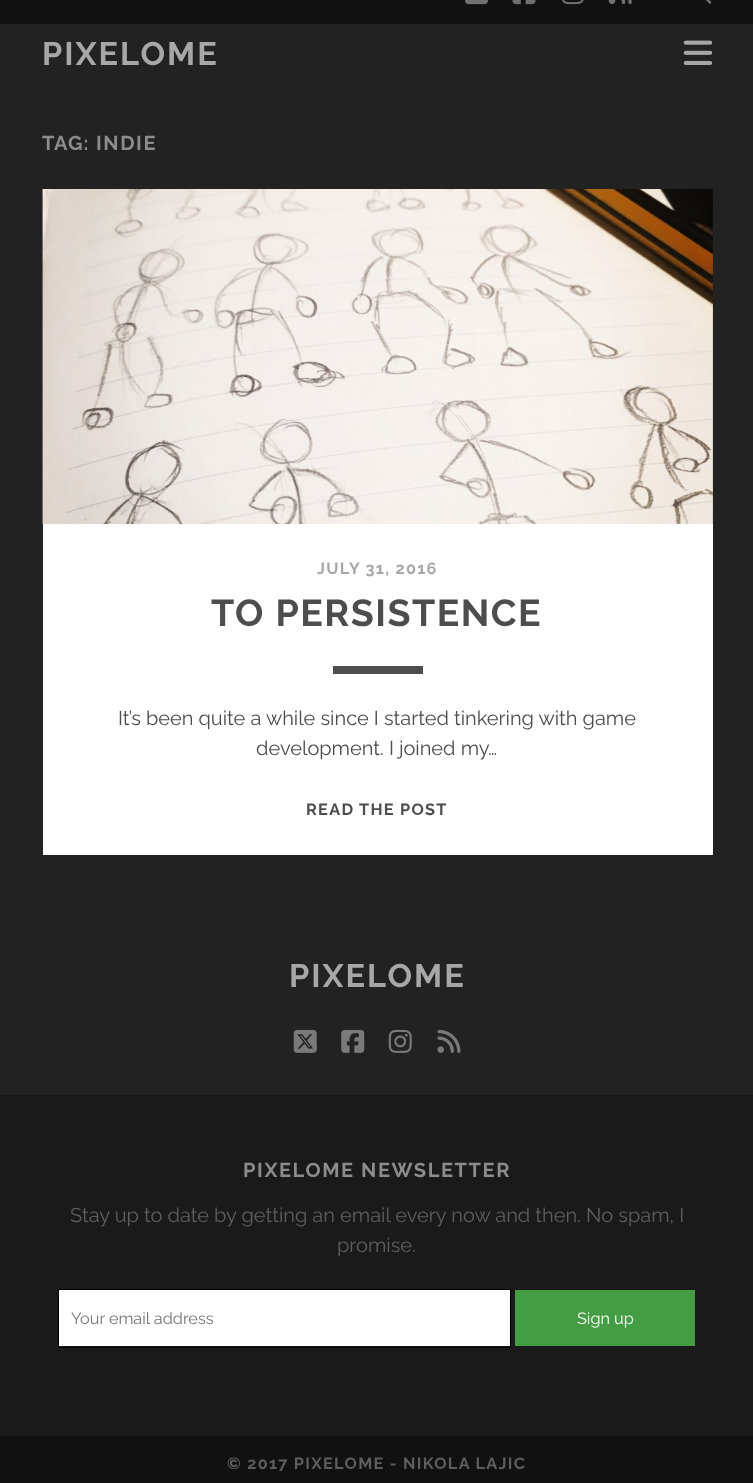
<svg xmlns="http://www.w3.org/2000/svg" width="753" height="1483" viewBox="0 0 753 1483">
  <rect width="100%" height="100%" fill="rgb(34,34,34)"/>
  <rect x="0" y="0" width="753" height="24" fill="rgb(17,17,17)"/>
  <image x="465" y="0" width="23" height="5" href="pic1.png"/>
  <image x="512" y="0" width="24" height="5" href="pic2.png"/>
  <image x="562" y="0" width="22" height="5" href="pic3.png"/>
  <image x="608" y="0" width="24" height="5" href="pic4.png"/>
  <image x="706" y="0" width="6" height="4" href="pic5.png"/>
  <text x="42" y="65" font-family="Raleway" font-size="32.5" font-weight="bold" letter-spacing="2" fill="rgb(167,167,167)">PIXELOME</text>
  <image x="683" y="40" width="30" height="25" href="pic6.png"/>
  <text x="42" y="150" font-family="Raleway" font-size="20" font-weight="bold" letter-spacing="1" fill="rgb(140,140,140)">TAG:</text>
  <text x="96" y="150" font-family="Raleway" font-size="20" font-weight="bold" letter-spacing="1.6" fill="rgb(140,140,140)">INDIE</text>
  <image x="42" y="189" width="671" height="335" href="pic7.png"/>
  <rect x="43" y="524" width="670" height="331" fill="rgb(255,255,255)"/>
  <text x="317" y="574" font-family="Raleway" font-size="16.25" font-weight="bold" letter-spacing="1.3" fill="rgb(167,167,167)">JULY 31, 2016</text>
  <text x="211" y="626" font-family="Raleway" font-size="37.5" font-weight="bold" letter-spacing="1.5" fill="rgb(77,77,77)">TO PERSISTENCE</text>
  <rect x="333" y="666" width="90" height="8" fill="rgb(77,77,77)"/>
  <g font-family="Raleway" font-size="20" fill="rgb(77,77,77)">
    <text x="118" y="725">It’s been quite a while since I started tinkering with game</text>
    <text x="256" y="755">development. I joined my…</text>
  </g>
  <text x="306" y="815" font-family="Raleway" font-size="16.25" font-weight="bold" letter-spacing="1.3" fill="rgb(77,77,77)">READ THE POST</text>
  <text x="289" y="987" font-family="Raleway" font-size="32.5" font-weight="bold" letter-spacing="2" fill="rgb(167,167,167)">PIXELOME</text>
  <image x="293" y="1029" width="24" height="24" href="pic8.png"/>
  <image x="341" y="1029" width="24" height="24" href="pic9.png"/>
  <image x="388" y="1029" width="24" height="24" href="pic10.png"/>
  <image x="437" y="1029" width="24" height="24" href="pic11.png"/>
  <rect x="0" y="1095" width="753" height="341" fill="rgb(26,26,26)"/>
  <text x="243" y="1177" font-family="Raleway" font-size="20" font-weight="bold" letter-spacing="1.6" fill="rgb(140,140,140)">PIXELOME NEWSLETTER</text>
  <g font-family="Raleway" font-size="20" fill="rgb(94,94,94)">
    <text x="70" y="1222">Stay up to date by getting an email every now and then. No spam, I</text>
    <text x="337" y="1252">promise.</text>
  </g>
  <rect x="59" y="1290" width="451" height="56" fill="rgb(255,255,255)"/>
  <rect x="58.5" y="1289.5" width="452" height="58" fill="none" stroke="rgb(0,0,0)"/>
  <text x="71" y="1324" font-family="Raleway" font-size="16.25" fill="rgb(117,117,117)">Your email address</text>
  <rect x="515" y="1290" width="180" height="56" fill="rgb(68,157,68)"/>
  <text x="577" y="1324" font-family="Raleway" font-size="16.25" fill="rgb(255,255,255)">Sign up</text>
  <rect x="0" y="1436" width="753" height="47" fill="rgb(17,17,17)"/>
  <text x="227" y="1469" font-family="Raleway" font-size="16.25" font-weight="bold" letter-spacing="1.3" fill="rgb(94,94,94)">© 2017 PIXELOME - NIKOLA LAJIC</text>
</svg>
